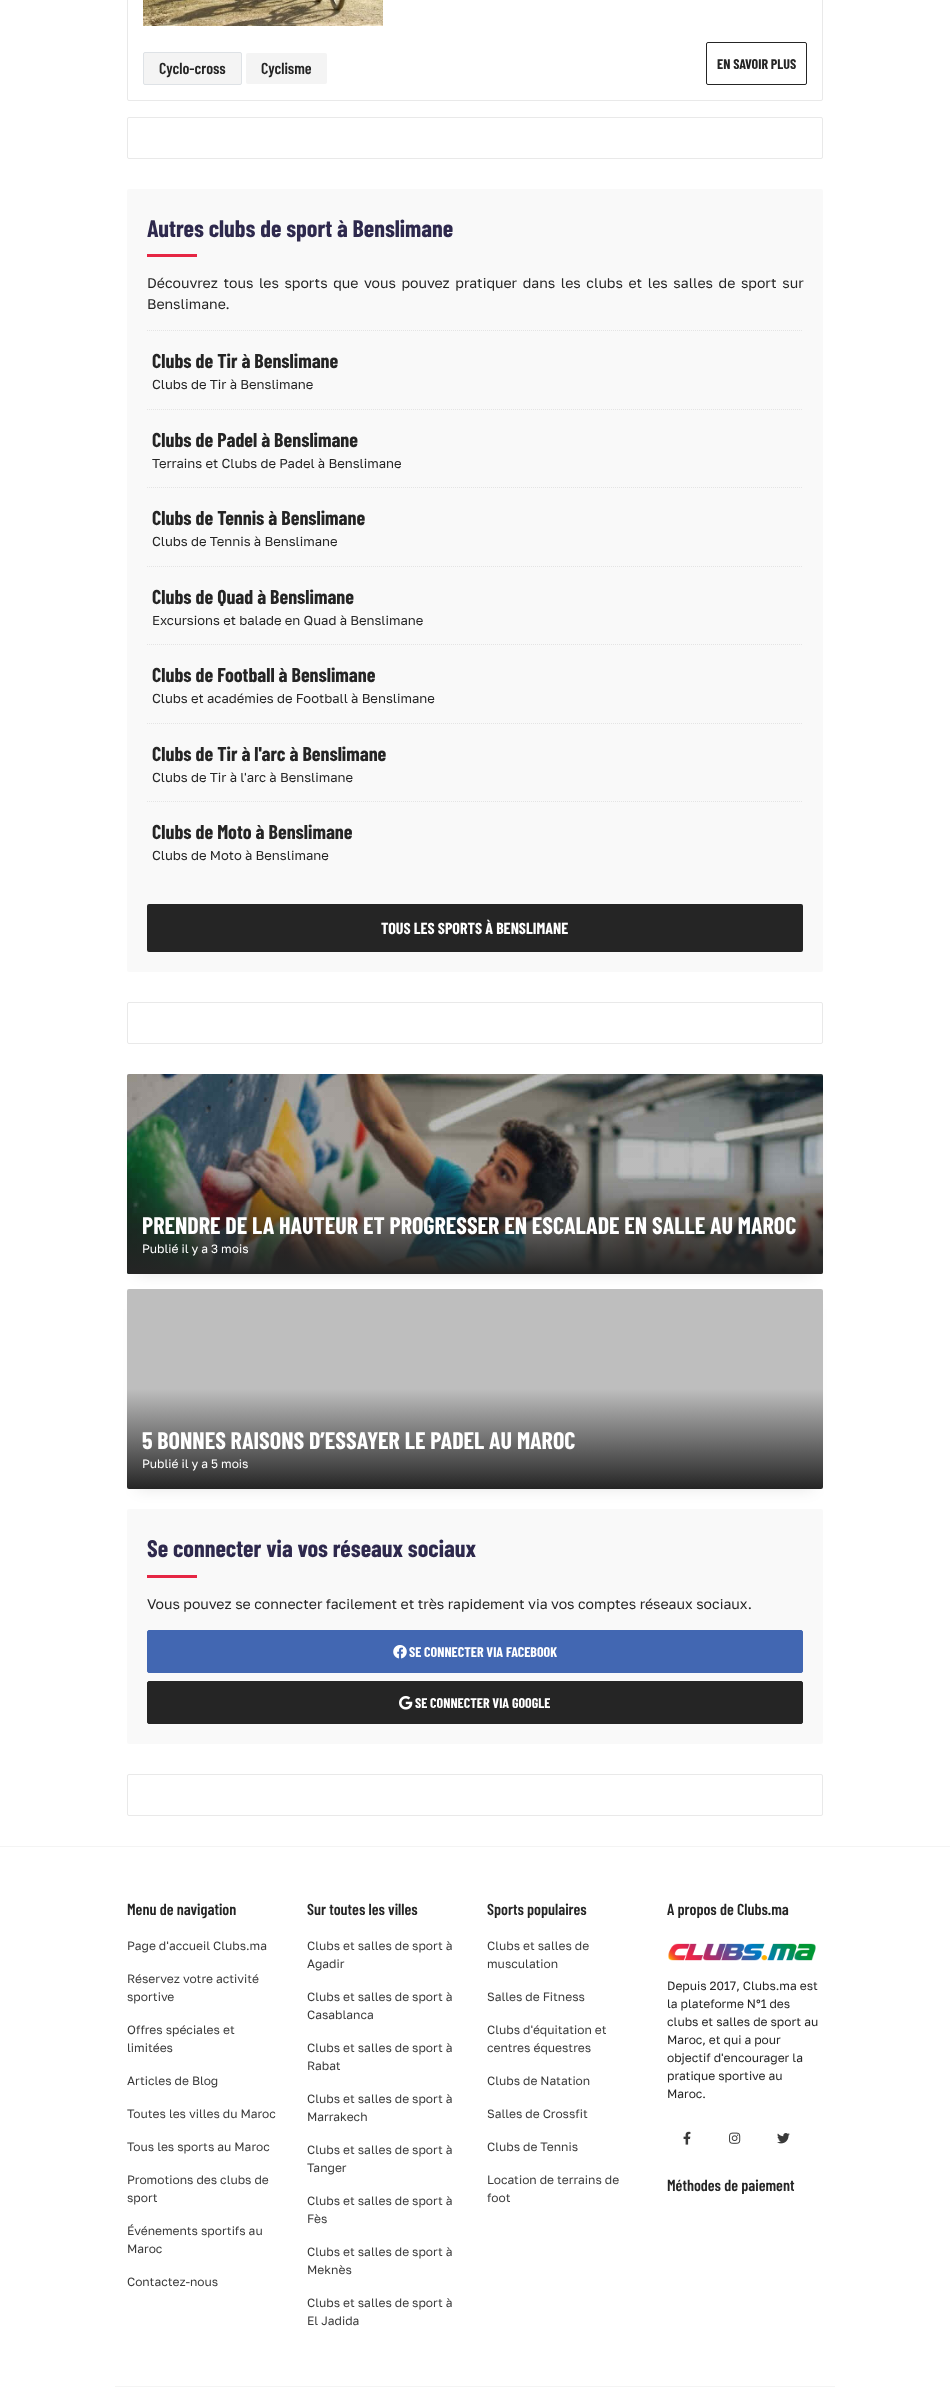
<svg xmlns="http://www.w3.org/2000/svg" width="950" height="2406" viewBox="0 0 950 2406">
  <defs>
    <linearGradient id="g1" gradientUnits="userSpaceOnUse" x1="475" y1="1074" x2="475" y2="1274"><stop offset="0.5" stop-color="rgb(37,37,37)" stop-opacity="0.3"/><stop offset="1" stop-color="rgb(37,37,37)"/></linearGradient>
    <linearGradient id="g2" gradientUnits="userSpaceOnUse" x1="475" y1="1289" x2="475" y2="1489"><stop offset="0.5" stop-color="rgb(190,190,190)"/><stop offset="1" stop-color="rgb(37,37,37)"/></linearGradient>
  </defs>
  <rect width="100%" height="100%" fill="rgb(255,255,255)"/>
  <rect x="127.5" y="-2.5" width="695" height="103" rx="1.5" fill="none" stroke="rgb(233,233,233)"/>
  <image x="143" y="0" width="240" height="26" href="pic1.png"/>
  <rect x="143.5" y="52.5" width="98" height="32" rx="1.5" fill="rgb(244,244,244)" stroke="rgb(222,226,230)"/>
  <text x="159" y="74" font-family="Barlow Condensed" font-size="16" font-weight="600" fill="rgb(37,37,37)">Cyclo-cross</text>
  <rect x="246" y="53" width="81" height="31" rx="2" fill="rgb(244,244,244)"/>
  <text x="261" y="74" font-family="Barlow Condensed" font-size="16" font-weight="600" fill="rgb(37,37,37)">Cyclisme</text>
  <rect x="706.5" y="42.5" width="100" height="42" rx="1.5" fill="none" stroke="rgb(37,37,37)"/>
  <text x="717" y="69" font-family="Barlow Condensed" font-size="14" font-weight="bold" fill="rgb(37,37,37)">EN SAVOIR PLUS</text>
  <rect x="127.5" y="117.5" width="695" height="41" rx="1.5" fill="none" stroke="rgb(233,233,233)"/>
  <rect x="127" y="189" width="696" height="783" rx="2" fill="rgb(249,249,249)"/>
  <text x="147" y="237" font-family="Barlow Condensed" font-size="24" font-weight="bold" fill="rgb(46,41,77)">Autres clubs de sport à Benslimane</text>
  <rect x="147" y="254" width="50" height="3" fill="rgb(230,38,68)"/>
  <g font-family="Golos Text" font-size="14" fill="rgb(37,37,37)">
    <text>
      <tspan x="147" y="288" word-spacing="2.1">Découvrez tous les sports que vous pouvez pratiquer dans les clubs et les salles de sport sur</tspan>
      <tspan x="147" y="309">Benslimane.</tspan>
    </text>
  </g>
  <path d="M147 330.5H803" fill="none" stroke="rgb(228,228,228)" stroke-dasharray="1 1"/>
  <text x="152" y="368" font-family="Barlow Condensed" font-size="20" font-weight="bold" fill="rgb(37,37,37)">Clubs de Tir à Benslimane</text>
  <text x="152" y="389" font-family="Golos Text" font-size="13" fill="rgb(37,37,37)">Clubs de Tir à Benslimane</text>
  <path d="M147 409.5H803" fill="none" stroke="rgb(228,228,228)" stroke-dasharray="1 1"/>
  <text x="152" y="447" font-family="Barlow Condensed" font-size="20" font-weight="bold" fill="rgb(37,37,37)">Clubs de Padel à Benslimane</text>
  <text x="152" y="468" font-family="Golos Text" font-size="13" fill="rgb(37,37,37)">Terrains et Clubs de Padel à Benslimane</text>
  <path d="M147 487.5H803" fill="none" stroke="rgb(228,228,228)" stroke-dasharray="1 1"/>
  <text x="152" y="525" font-family="Barlow Condensed" font-size="20" font-weight="bold" fill="rgb(37,37,37)">Clubs de Tennis à Benslimane</text>
  <text x="152" y="546" font-family="Golos Text" font-size="13" fill="rgb(37,37,37)">Clubs de Tennis à Benslimane</text>
  <path d="M147 566.5H803" fill="none" stroke="rgb(228,228,228)" stroke-dasharray="1 1"/>
  <text x="152" y="604" font-family="Barlow Condensed" font-size="20" font-weight="bold" fill="rgb(37,37,37)">Clubs de Quad à Benslimane</text>
  <text x="152" y="625" font-family="Golos Text" font-size="13" fill="rgb(37,37,37)">Excursions et balade en Quad à Benslimane</text>
  <path d="M147 644.5H803" fill="none" stroke="rgb(228,228,228)" stroke-dasharray="1 1"/>
  <text x="152" y="682" font-family="Barlow Condensed" font-size="20" font-weight="bold" fill="rgb(37,37,37)">Clubs de Football à Benslimane</text>
  <text x="152" y="703" font-family="Golos Text" font-size="13" fill="rgb(37,37,37)">Clubs et académies de Football à Benslimane</text>
  <path d="M147 723.5H803" fill="none" stroke="rgb(228,228,228)" stroke-dasharray="1 1"/>
  <text x="152" y="761" font-family="Barlow Condensed" font-size="20" font-weight="bold" fill="rgb(37,37,37)">Clubs de Tir à l'arc à Benslimane</text>
  <text x="152" y="782" font-family="Golos Text" font-size="13" fill="rgb(37,37,37)">Clubs de Tir à l'arc à Benslimane</text>
  <path d="M147 801.5H803" fill="none" stroke="rgb(228,228,228)" stroke-dasharray="1 1"/>
  <text x="152" y="839" font-family="Barlow Condensed" font-size="20" font-weight="bold" fill="rgb(37,37,37)">Clubs de Moto à Benslimane</text>
  <text x="152" y="860" font-family="Golos Text" font-size="13" fill="rgb(37,37,37)">Clubs de Moto à Benslimane</text>
  <rect x="148" y="905" width="654" height="46" rx="1" fill="rgb(37,37,37)" stroke="rgb(37,37,37)" stroke-width="2"/>
  <text x="381" y="934" font-family="Barlow Condensed" font-size="16" font-weight="bold" fill="rgb(255,255,255)">TOUS LES SPORTS À BENSLIMANE</text>
  <rect x="127.5" y="1002.5" width="695" height="41" rx="1.5" fill="none" stroke="rgb(233,233,233)"/>
  <rect x="137" y="1094" width="676" height="180" fill="rgba(0,0,0,0.1)" filter="blur(7.5px)"/>
  <image x="127" y="1074" width="696" height="200" href="pic2.png"/>
  <rect x="127" y="1074" width="696" height="200" rx="2" fill="url(#g1)"/>
  <text x="142" y="1234" font-family="Barlow Condensed" font-size="24" font-weight="bold" fill="rgb(255,255,255)">PRENDRE DE LA HAUTEUR ET PROGRESSER EN ESCALADE EN SALLE AU MAROC</text>
  <text x="142" y="1253" font-family="Golos Text" font-size="12" fill="rgb(255,255,255)">Publié il y a 3 mois</text>
  <rect x="127" y="1509" width="696" height="235" rx="2" fill="rgb(249,249,249)"/>
  <rect x="137" y="1309" width="676" height="180" fill="rgba(0,0,0,0.1)" filter="blur(7.5px)"/>
  <rect x="127" y="1289" width="696" height="200" rx="2" fill="url(#g2)"/>
  <text x="142" y="1449" font-family="Barlow Condensed" font-size="24" font-weight="bold" fill="rgb(255,255,255)">5 BONNES RAISONS D’ESSAYER LE PADEL AU MAROC</text>
  <text x="142" y="1468" font-family="Golos Text" font-size="12" fill="rgb(255,255,255)">Publié il y a 5 mois</text>
  <text x="147" y="1557" font-family="Barlow Condensed" font-size="24" font-weight="bold" fill="rgb(46,41,77)">Se connecter via vos réseaux sociaux</text>
  <rect x="147" y="1575" width="50" height="3" fill="rgb(230,38,68)"/>
  <text x="147" y="1609" font-family="Golos Text" font-size="14" fill="rgb(37,37,37)">Vous pouvez se connecter facilement et très rapidement via vos comptes réseaux sociaux.</text>
  <rect x="147.5" y="1630.5" width="655" height="42" rx="1.5" fill="rgb(66,103,178)" stroke="rgb(66,103,178)"/>
  <image x="393" y="1645" width="14" height="14" href="pic3.png"/>
  <text x="409" y="1657" font-family="Barlow Condensed" font-size="14" font-weight="bold" fill="rgb(255,255,255)">SE CONNECTER VIA FACEBOOK</text>
  <rect x="147.5" y="1681.5" width="655" height="42" rx="1.5" fill="rgb(37,37,37)" stroke="rgb(37,37,37)"/>
  <image x="399" y="1696" width="14" height="14" href="pic4.png"/>
  <text x="415" y="1708" font-family="Barlow Condensed" font-size="14" font-weight="bold" fill="rgb(255,255,255)">SE CONNECTER VIA GOOGLE</text>
  <rect x="127.5" y="1774.5" width="695" height="41" rx="1.5" fill="none" stroke="rgb(233,233,233)"/>
  <rect x="0" y="1846" width="950" height="1" fill="rgb(244,244,244)"/>
  <text x="127" y="1915" font-family="Barlow Condensed" font-size="16" font-weight="600" fill="rgb(37,37,37)">Menu de navigation</text>
  <g font-family="Golos Text" font-size="12" fill="rgb(59,59,59)">
    <text x="127" y="1950">Page d'accueil Clubs.ma</text>
    <text>
      <tspan x="127" y="1983">Réservez votre activité</tspan>
      <tspan x="127" y="2001">sportive</tspan>
    </text>
    <text>
      <tspan x="127" y="2034">Offres spéciales et</tspan>
      <tspan x="127" y="2052">limitées</tspan>
    </text>
    <text x="127" y="2085">Articles de Blog</text>
    <text x="127" y="2118">Toutes les villes du Maroc</text>
    <text x="127" y="2151">Tous les sports au Maroc</text>
    <text>
      <tspan x="127" y="2184">Promotions des clubs de</tspan>
      <tspan x="127" y="2202">sport</tspan>
    </text>
    <text>
      <tspan x="127" y="2235">Événements sportifs au</tspan>
      <tspan x="127" y="2253">Maroc</tspan>
    </text>
    <text x="127" y="2286">Contactez-nous</text>
  </g>
  <text x="307" y="1915" font-family="Barlow Condensed" font-size="16" font-weight="600" fill="rgb(37,37,37)">Sur toutes les villes</text>
  <g font-family="Golos Text" font-size="12" fill="rgb(59,59,59)">
    <text>
      <tspan x="307" y="1950">Clubs et salles de sport à</tspan>
      <tspan x="307" y="1968">Agadir</tspan>
    </text>
    <text>
      <tspan x="307" y="2001">Clubs et salles de sport à</tspan>
      <tspan x="307" y="2019">Casablanca</tspan>
    </text>
    <text>
      <tspan x="307" y="2052">Clubs et salles de sport à</tspan>
      <tspan x="307" y="2070">Rabat</tspan>
    </text>
    <text>
      <tspan x="307" y="2103">Clubs et salles de sport à</tspan>
      <tspan x="307" y="2121">Marrakech</tspan>
    </text>
    <text>
      <tspan x="307" y="2154">Clubs et salles de sport à</tspan>
      <tspan x="307" y="2172">Tanger</tspan>
    </text>
    <text>
      <tspan x="307" y="2205">Clubs et salles de sport à</tspan>
      <tspan x="307" y="2223">Fès</tspan>
    </text>
    <text>
      <tspan x="307" y="2256">Clubs et salles de sport à</tspan>
      <tspan x="307" y="2274">Meknès</tspan>
    </text>
    <text>
      <tspan x="307" y="2307">Clubs et salles de sport à</tspan>
      <tspan x="307" y="2325">El Jadida</tspan>
    </text>
  </g>
  <text x="487" y="1915" font-family="Barlow Condensed" font-size="16" font-weight="600" fill="rgb(37,37,37)">Sports populaires</text>
  <g font-family="Golos Text" font-size="12" fill="rgb(59,59,59)">
    <text>
      <tspan x="487" y="1950">Clubs et salles de</tspan>
      <tspan x="487" y="1968">musculation</tspan>
    </text>
    <text x="487" y="2001">Salles de Fitness</text>
    <text>
      <tspan x="487" y="2034">Clubs d'équitation et</tspan>
      <tspan x="487" y="2052">centres équestres</tspan>
    </text>
    <text x="487" y="2085">Clubs de Natation</text>
    <text x="487" y="2118">Salles de Crossfit</text>
    <text x="487" y="2151">Clubs de Tennis</text>
    <text>
      <tspan x="487" y="2184">Location de terrains de</tspan>
      <tspan x="487" y="2202">foot</tspan>
    </text>
  </g>
  <text x="667" y="1915" font-family="Barlow Condensed" font-size="16" font-weight="600" fill="rgb(37,37,37)">A propos de Clubs.ma</text>
  <image x="668" y="1943" width="148" height="18" href="pic5.png"/>
  <g font-family="Golos Text" font-size="12" fill="rgb(37,37,37)">
    <text>
      <tspan x="667" y="1990">Depuis 2017, Clubs.ma est</tspan>
      <tspan x="667" y="2008">la plateforme N°1 des</tspan>
      <tspan x="667" y="2026">clubs et salles de sport au</tspan>
      <tspan x="667" y="2044">Maroc, et qui a pour</tspan>
      <tspan x="667" y="2062">objectif d'encourager la</tspan>
      <tspan x="667" y="2080">pratique sportive au</tspan>
      <tspan x="667" y="2098">Maroc.</tspan>
    </text>
  </g>
  <image x="683" y="2131" width="8" height="14" href="pic6.png"/>
  <image x="729" y="2132" width="12" height="12" href="pic7.png"/>
  <image x="777" y="2133" width="13" height="11" href="pic8.png"/>
  <text x="667" y="2191" font-family="Barlow Condensed" font-size="16" font-weight="600" fill="rgb(37,37,37)">Méthodes de paiement</text>
  <rect x="115" y="2386" width="720" height="1" fill="rgb(244,244,244)"/>
</svg>
